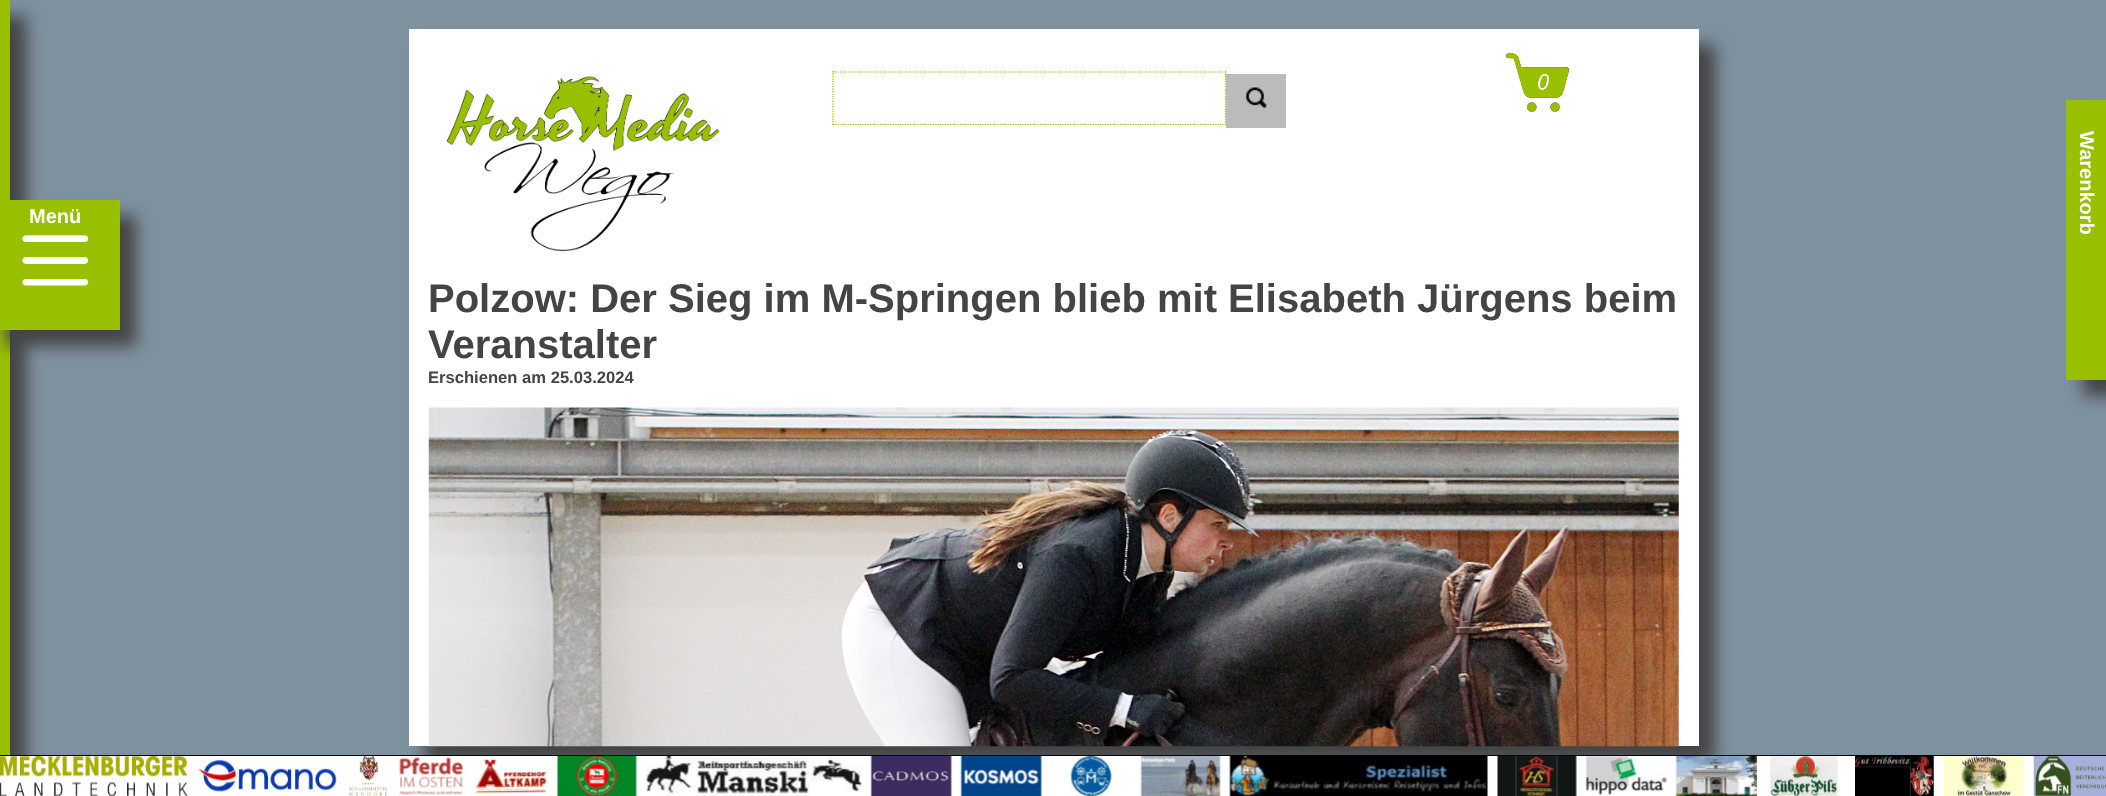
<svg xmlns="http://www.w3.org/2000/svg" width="2106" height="796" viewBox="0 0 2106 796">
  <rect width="100%" height="100%" fill="rgb(126,145,159)"/>
  <rect x="425" y="45" width="1290" height="718" fill="rgb(68,68,68)" filter="blur(8px)"/>
  <rect x="409" y="29" width="1290" height="717" fill="rgb(255,255,255)"/>
  <rect x="-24" y="16" width="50" height="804" fill="rgb(68,68,68)" filter="blur(8px)"/>
  <rect x="0" y="0" width="10" height="755" fill="rgb(152,191,0)"/>
  <rect x="6" y="216" width="130" height="130" fill="rgb(68,68,68)" filter="blur(8px)"/>
  <rect x="0" y="200" width="120" height="130" fill="rgb(152,191,0)"/>
  <text x="29" y="223" font-family="Liberation Sans" font-size="20" font-weight="bold" fill="rgb(255,255,255)">Menü</text>
  <image x="22" y="235" width="67" height="51" href="pic1.png"/>
  <image x="446" y="76" width="274" height="176" href="pic2.png"/>
  <path d="M832.5 72H1226" fill="none" stroke="rgb(152,191,0)" stroke-width="1.2" stroke-dasharray="1.25 1.25"/>
  <path d="M1225.5 71V125" fill="none" stroke="rgb(152,191,0)" stroke-width="1.2" stroke-dasharray="1.25 1.25"/>
  <path d="M832.5 124.5H1226" fill="none" stroke="rgb(152,191,0)" stroke-width="1.2" stroke-dasharray="1.25 1.25"/>
  <path d="M833 71V125" fill="none" stroke="rgb(152,191,0)" stroke-width="1.2" stroke-dasharray="1.25 1.25"/>
  <rect x="1226" y="74" width="60" height="54" fill="rgb(187,187,187)"/>
  <image x="1246" y="87" width="21" height="21" href="pic3.png"/>
  <image x="1506" y="53" width="64" height="59" href="pic4.png"/>
  <rect x="2083" y="116" width="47" height="280" fill="rgb(68,68,68)" filter="blur(8px)"/>
  <rect x="2066" y="100" width="40" height="280" fill="rgb(152,191,0)"/>
  <text x="2080" y="131" transform="rotate(90 2080 131)" font-family="Liberation Sans" font-size="20" font-weight="bold" fill="rgb(255,255,255)">Warenkorb</text>
  <g font-family="Liberation Sans" font-size="40" font-weight="bold" fill="rgb(68,68,68)">
    <text>
      <tspan x="428" y="312">Polzow: Der Sieg im M-Springen blieb mit Elisabeth Jürgens beim</tspan>
      <tspan x="428" y="358">Veranstalter</tspan>
    </text>
  </g>
  <text x="428" y="383" font-family="Liberation Sans" font-size="16.6" font-weight="bold" fill="rgb(68,68,68)">Erschienen am 25.03.2024</text>
  <image x="428" y="407" width="1251" height="340" href="pic5.png"/>
  <rect x="187" y="756" width="1847" height="40" fill="rgb(255,255,255)"/>
  <rect x="0" y="755" width="2106" height="1" fill="rgb(0,0,0)"/>
  <image x="0" y="756" width="188" height="40" href="pic6.png"/>
  <image x="198" y="760" width="139" height="32" href="pic7.png"/>
  <image x="348" y="756" width="40" height="40" href="pic8.png"/>
  <image x="398" y="757" width="67" height="39" href="pic9.png"/>
  <image x="475" y="759" width="72" height="35" href="pic10.png"/>
  <image x="557" y="756" width="80" height="40" href="pic11.png"/>
  <image x="645" y="756" width="217" height="40" href="pic12.png"/>
  <image x="870" y="756" width="82" height="40" href="pic13.png"/>
  <image x="960" y="756" width="82" height="40" href="pic14.png"/>
  <image x="1070" y="756" width="46" height="40" href="pic15.png"/>
  <image x="1140" y="756" width="81" height="40" href="pic16.png"/>
  <image x="1229" y="756" width="259" height="40" href="pic17.png"/>
  <image x="1497" y="756" width="80" height="40" href="pic18.png"/>
  <image x="1585" y="756" width="82" height="40" href="pic19.png"/>
  <image x="1675" y="756" width="82" height="40" href="pic20.png"/>
  <image x="1768" y="756" width="72" height="40" href="pic21.png"/>
  <image x="1855" y="756" width="79" height="40" href="pic22.png"/>
  <image x="1943" y="756" width="81" height="40" href="pic23.png"/>
  <image x="2033" y="756" width="73" height="40" href="pic24.png"/>
</svg>
